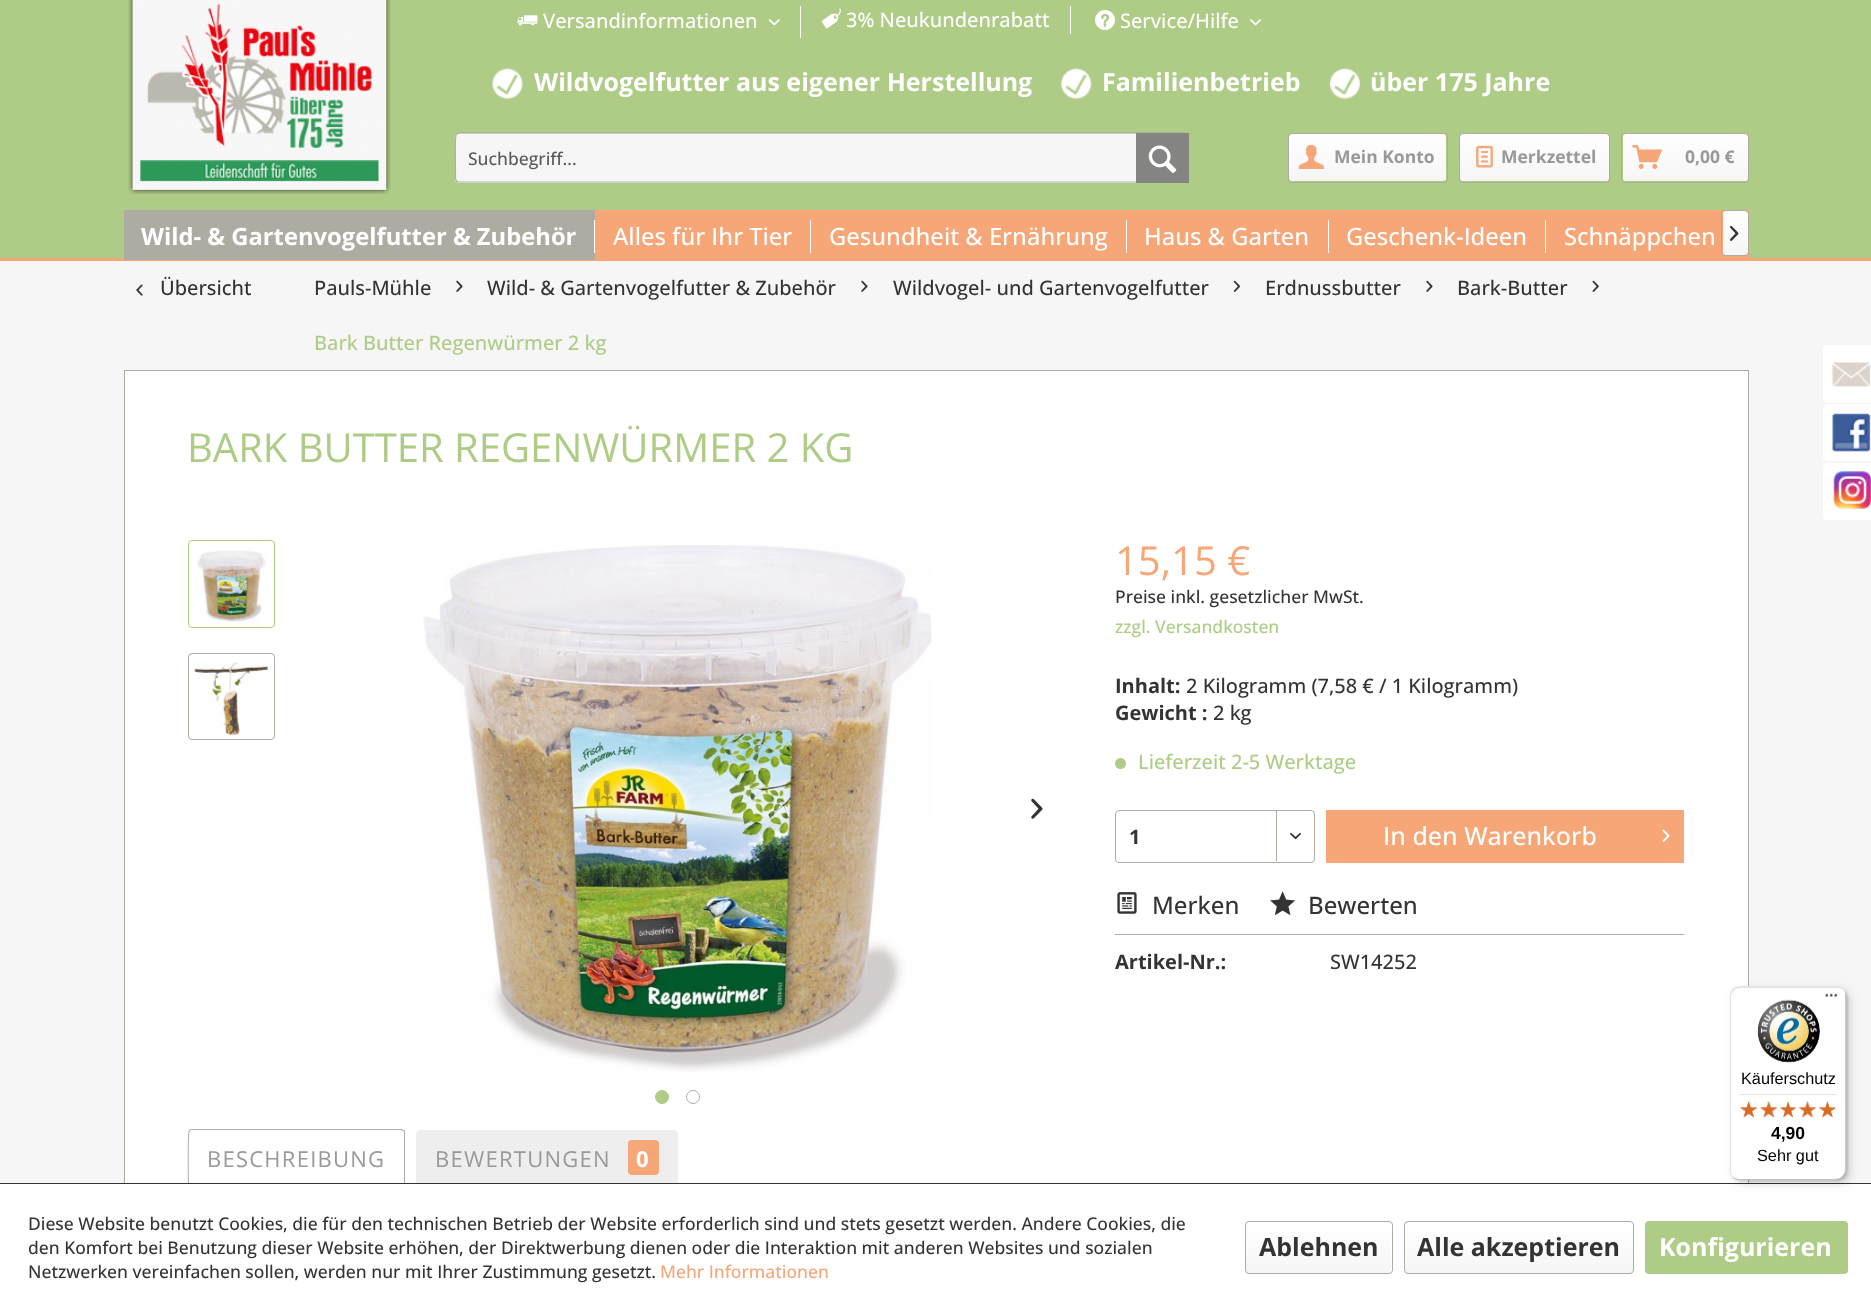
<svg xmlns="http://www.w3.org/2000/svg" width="1871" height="1309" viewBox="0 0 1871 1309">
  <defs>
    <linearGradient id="g1" gradientUnits="userSpaceOnUse" x1="1368" y1="134" x2="1368" y2="181"><stop offset="0" stop-color="rgb(255,255,255)"/><stop offset="1" stop-color="rgb(246,246,246)"/></linearGradient>
    <linearGradient id="g2" gradientUnits="userSpaceOnUse" x1="1534" y1="134" x2="1534" y2="181"><stop offset="0" stop-color="rgb(255,255,255)"/><stop offset="1" stop-color="rgb(246,246,246)"/></linearGradient>
    <linearGradient id="g3" gradientUnits="userSpaceOnUse" x1="1685" y1="134" x2="1685" y2="181"><stop offset="0" stop-color="rgb(255,255,255)"/><stop offset="1" stop-color="rgb(246,246,246)"/></linearGradient>
    <linearGradient id="g4" gradientUnits="userSpaceOnUse" x1="1735" y1="211" x2="1735" y2="255"><stop offset="0" stop-color="rgb(255,255,255)"/><stop offset="1" stop-color="rgb(246,246,246)"/></linearGradient>
    <linearGradient id="g5" gradientUnits="userSpaceOnUse" x1="1319" y1="1223" x2="1319" y2="1273"><stop offset="0" stop-color="rgb(255,255,255)"/><stop offset="1" stop-color="rgb(246,246,246)"/></linearGradient>
    <linearGradient id="g6" gradientUnits="userSpaceOnUse" x1="1519" y1="1223" x2="1519" y2="1273"><stop offset="0" stop-color="rgb(255,255,255)"/><stop offset="1" stop-color="rgb(246,246,246)"/></linearGradient>
  </defs>
  <rect width="100%" height="100%" fill="rgb(246,246,246)"/>
  <rect x="0" y="0" width="1871" height="258" fill="rgb(174,204,134)"/>
  <rect x="800" y="6" width="1" height="32" fill="rgb(255,255,255)"/>
  <image x="517" y="15" width="21" height="11" href="pic1.png"/>
  <text x="543" y="28" font-family="Open Sans" font-size="20" font-weight="500" fill="rgb(255,255,255)">Versandinformationen</text>
  <image x="768" y="19" width="12" height="7" href="pic2.png"/>
  <rect x="1070" y="6" width="1" height="28" fill="rgb(255,255,255)"/>
  <image x="821" y="8" width="20" height="21" href="pic3.png"/>
  <text x="846" y="27" font-family="Open Sans" font-size="20" font-weight="500" fill="rgb(255,255,255)">3% Neukundenrabatt</text>
  <image x="1095" y="10" width="20" height="20" href="pic4.png"/>
  <text x="1120" y="28" font-family="Open Sans" font-size="20" font-weight="500" fill="rgb(255,255,255)">Service/Hilfe</text>
  <image x="1250" y="19" width="11" height="7" href="pic5.png"/>
  <image x="492" y="68" width="31" height="31" href="pic6.png"/>
  <text x="534" y="91" font-family="Open Sans" font-size="25" font-weight="bold" fill="rgb(255,255,255)">Wildvogelfutter aus eigener Herstellung</text>
  <image x="1061" y="68" width="31" height="31" href="pic7.png"/>
  <text x="1102" y="91" font-family="Open Sans" font-size="25" font-weight="bold" fill="rgb(255,255,255)">Familienbetrieb</text>
  <image x="1330" y="68" width="30" height="31" href="pic8.png"/>
  <text x="1370" y="91" font-family="Open Sans" font-size="25" font-weight="bold" fill="rgb(255,255,255)">über 175 Jahre</text>
  <image x="128" y="0" width="263" height="194" href="pic9.png"/>
  <rect x="455" y="133" width="734" height="50" rx="4" fill="rgb(246,246,246)"/>
  <path d="M456.5 134L459 133H1185L1187 134" fill="none" stroke="rgb(162,159,148)" stroke-width="1.2"/>
  <path d="M1187 134C1189.5 136 1188 166.5 1188 171.5C1188 173.5 1190 182 1185 182H459C454 182 455.5 173.5 455.5 171.5C455.5 166.5 454.5 136 456.5 134" fill="none" stroke="rgb(174,171,162)" stroke-width="1.2"/>
  <text x="468" y="165" font-family="Open Sans" font-size="17.5" font-weight="500" fill="rgb(89,89,89)">Suchbegriff...</text>
  <rect x="1136" y="133" width="53" height="50" fill="rgb(132,132,130)"/>
  <image x="1148" y="145" width="29" height="28" href="pic10.png"/>
  <rect x="1289" y="134" width="157" height="47" rx="2.5" fill="url(#g1)"/>
  <rect x="1288.5" y="133.5" width="159" height="49" rx="3.5" fill="none" stroke="rgb(174,171,162)"/>
  <image x="1298" y="145" width="26" height="24" href="pic11.png"/>
  <text x="1334" y="163" font-family="Open Sans" font-size="17.5" font-weight="bold" fill="rgb(153,153,153)">Mein Konto</text>
  <rect x="1460" y="134" width="149" height="47" rx="2.5" fill="url(#g2)"/>
  <rect x="1459.5" y="133.5" width="150" height="49" rx="3.5" fill="none" stroke="rgb(174,171,162)"/>
  <image x="1476" y="145" width="17" height="23" href="pic12.png"/>
  <text x="1501" y="163" font-family="Open Sans" font-size="17.5" font-weight="bold" fill="rgb(153,153,153)">Merkzettel</text>
  <rect x="1623" y="134" width="125" height="47" rx="2.5" fill="url(#g3)"/>
  <rect x="1621.5" y="133.5" width="127" height="49" rx="3.5" fill="none" stroke="rgb(174,171,162)"/>
  <image x="1632" y="145" width="31" height="24" href="pic13.png"/>
  <text x="1685" y="163" font-family="Open Sans" font-size="17.5" font-weight="bold" fill="rgb(153,153,153)">0,00 €</text>
  <rect x="0" y="258" width="1871" height="3" fill="rgb(246,166,119)"/>
  <rect x="595" y="210" width="1154" height="48" fill="rgb(246,166,119)"/>
  <rect x="124" y="210" width="471" height="50" fill="rgb(174,171,162)"/>
  <text x="141" y="245" font-family="Open Sans" font-size="23.75" font-weight="bold" fill="rgb(255,255,255)">Wild- &amp; Gartenvogelfutter &amp; Zubehör</text>
  <rect x="594" y="220" width="1" height="33" fill="rgb(255,255,255)"/>
  <text x="613" y="245" font-family="Open Sans" font-size="23.75" font-weight="500" fill="rgb(255,255,255)">Alles für Ihr Tier</text>
  <rect x="810" y="220" width="1" height="33" fill="rgb(255,255,255)"/>
  <text x="829" y="245" font-family="Open Sans" font-size="23.75" font-weight="500" fill="rgb(255,255,255)">Gesundheit &amp; Ernährung</text>
  <rect x="1126" y="220" width="1" height="33" fill="rgb(255,255,255)"/>
  <text x="1144" y="245" font-family="Open Sans" font-size="23.75" font-weight="500" fill="rgb(255,255,255)">Haus &amp; Garten</text>
  <rect x="1328" y="220" width="1" height="33" fill="rgb(255,255,255)"/>
  <text x="1346" y="245" font-family="Open Sans" font-size="23.75" font-weight="500" fill="rgb(255,255,255)">Geschenk-Ideen</text>
  <rect x="1545" y="220" width="1" height="33" fill="rgb(255,255,255)"/>
  <text x="1564" y="245" font-family="Open Sans" font-size="23.75" font-weight="500" fill="rgb(255,255,255)">Schnäppchen</text>
  <rect x="1723" y="211" width="25" height="44" rx="2.5" fill="url(#g4)"/>
  <rect x="1721.5" y="210.5" width="27" height="45" rx="3.5" fill="none" stroke="rgb(174,171,162)"/>
  <image x="1730" y="226" width="9" height="15" href="pic14.png"/>
  <image x="136" y="284" width="7" height="12" href="pic15.png"/>
  <g font-family="Open Sans" font-size="20" font-weight="500" fill="rgb(51,51,51)">
    <text x="160" y="295">Übersicht</text>
    <text x="314" y="295">Pauls-Mühle</text>
  </g>
  <image x="456" y="280" width="7" height="12" href="pic16.png"/>
  <text x="487" y="295" font-family="Open Sans" font-size="20" font-weight="500" fill="rgb(51,51,51)">Wild- &amp; Gartenvogelfutter &amp; Zubehör</text>
  <image x="861" y="280" width="7" height="12" href="pic16.png"/>
  <text x="893" y="295" font-family="Open Sans" font-size="20" font-weight="500" fill="rgb(51,51,51)">Wildvogel- und Gartenvogelfutter</text>
  <image x="1233" y="280" width="8" height="12" href="pic17.png"/>
  <text x="1265" y="295" font-family="Open Sans" font-size="20" font-weight="500" fill="rgb(51,51,51)">Erdnussbutter</text>
  <image x="1426" y="280" width="7" height="12" href="pic16.png"/>
  <text x="1457" y="295" font-family="Open Sans" font-size="20" font-weight="500" fill="rgb(51,51,51)">Bark-Butter</text>
  <image x="1592" y="280" width="7" height="12" href="pic18.png"/>
  <text x="314" y="350" font-family="Open Sans" font-size="20" font-weight="500" fill="rgb(174,204,134)">Bark Butter Regenwürmer 2 kg</text>
  <rect x="125" y="371" width="1623" height="812" fill="rgb(255,255,255)"/>
  <rect x="124.5" y="370.5" width="1624" height="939" fill="none" stroke="rgb(174,171,162)"/>
  <text x="187" y="462" font-family="Open Sans" font-size="40" fill="rgb(174,204,134)">BARK BUTTER REGENWÜRMER 2 KG</text>
  <rect x="188.5" y="540.5" width="86" height="87" rx="3.5" fill="none" stroke="rgb(174,204,134)"/>
  <image x="197" y="550" width="69" height="72" href="pic19.png"/>
  <rect x="188.5" y="653.5" width="86" height="86" rx="3.5" fill="none" stroke="rgb(174,171,162)"/>
  <image x="194" y="661" width="74" height="74" href="pic20.png"/>
  <image x="423" y="545" width="509" height="527" href="pic21.png"/>
  <image x="1031" y="798" width="12" height="21" href="pic22.png"/>
  <circle cx="662" cy="1097" r="6.5" fill="rgb(174,204,134)" stroke="rgb(174,204,134)"/>
  <circle cx="693" cy="1097" r="6.5" fill="none" stroke="rgb(174,171,162)"/>
  <text x="1115" y="575" font-family="Open Sans" font-size="40" fill="rgb(246,166,119)">15,15 €</text>
  <text x="1115" y="603" font-family="Open Sans" font-size="17.5" font-weight="500" fill="rgb(51,51,51)">Preise inkl. gesetzlicher MwSt.</text>
  <text x="1115" y="633" font-family="Open Sans" font-size="17.5" font-weight="500" fill="rgb(174,204,134)">zzgl. Versandkosten</text>
  <text x="1115" y="693" font-family="Open Sans" font-size="20" font-weight="bold" fill="rgb(51,51,51)">Inhalt:</text>
  <text x="1186" y="693" font-family="Open Sans" font-size="20" font-weight="500" fill="rgb(51,51,51)">2 Kilogramm (7,58 € / 1 Kilogramm)</text>
  <text x="1115" y="720" font-family="Open Sans" font-size="20" font-weight="bold" fill="rgb(51,51,51)">Gewicht :</text>
  <text x="1213" y="720" font-family="Open Sans" font-size="20" font-weight="500" fill="rgb(51,51,51)">2 kg</text>
  <circle cx="1120.5" cy="763.5" r="5.5" fill="rgb(174,204,134)"/>
  <text x="1138" y="769" font-family="Open Sans" font-size="20" font-weight="500" fill="rgb(174,204,134)">Lieferzeit 2-5 Werktage</text>
  <rect x="1115.5" y="810.5" width="199" height="52" rx="3.5" fill="none" stroke="rgb(174,171,162)"/>
  <text x="1129" y="844" font-family="Open Sans" font-size="20" font-weight="bold" fill="rgb(51,51,51)">1</text>
  <rect x="1276" y="811" width="1" height="50" fill="rgb(174,171,162)"/>
  <image x="1290" y="832" width="11" height="8" href="pic23.png"/>
  <rect x="1326" y="810" width="358" height="53" fill="rgb(246,166,119)"/>
  <text x="1383" y="845" font-family="Open Sans" font-size="25" font-weight="500" fill="rgb(255,255,255)">In den Warenkorb</text>
  <image x="1662" y="829" width="8" height="13" href="pic24.png"/>
  <rect x="1115" y="934" width="569" height="1" fill="rgb(174,171,162)"/>
  <image x="1117" y="892" width="20" height="22" href="pic25.png"/>
  <text x="1152" y="914" font-family="Open Sans" font-size="24" font-weight="500" fill="rgb(51,51,51)">Merken</text>
  <image x="1270" y="891" width="26" height="25" href="pic26.png"/>
  <text x="1308" y="914" font-family="Open Sans" font-size="24" font-weight="500" fill="rgb(51,51,51)">Bewerten</text>
  <text x="1115" y="969" font-family="Open Sans" font-size="20" font-weight="bold" fill="rgb(51,51,51)">Artikel-Nr.:</text>
  <text x="1330" y="969" font-family="Open Sans" font-size="20" font-weight="500" fill="rgb(51,51,51)">SW14252</text>
  <path d="M192 1129H401C403 1129 405 1131 405 1133V1186H188V1133C188 1131 190 1129 192 1129Z" fill="rgb(255,255,255)"/>
  <path d="M191 1129L189 1130L190 1131L191 1130H401L403 1131L404 1130L401 1129Z" fill="rgb(174,171,162)"/>
  <path d="M404 1130L405 1132V1186L404 1185V1132L403 1131Z" fill="rgb(174,171,162)"/>
  <path d="M189 1130C187 1132 188 1179 188 1186L189 1185C189 1179 188 1132 190 1131Z" fill="rgb(174,171,162)"/>
  <text x="207" y="1167" font-family="Open Sans" font-size="22" letter-spacing="1.25" fill="rgb(153,153,153)">BESCHREIBUNG</text>
  <path d="M420 1130H674C676 1130 678 1132 678 1134V1186H416V1134C416 1132 418 1130 420 1130Z" fill="rgb(238,238,238)"/>
  <text x="435" y="1167" font-family="Open Sans" font-size="22" letter-spacing="1.25" fill="rgb(153,153,153)">BEWERTUNGEN</text>
  <rect x="628" y="1140" width="31" height="35" rx="4" fill="rgb(246,166,119)"/>
  <text x="636" y="1167" font-family="Open Sans" font-size="22" font-weight="bold" letter-spacing="1.25" fill="rgb(255,255,255)">0</text>
  <path d="M1827 345H1871V403H1827C1825 403 1823 401 1823 399V349C1823 347 1825 345 1827 345Z" fill="rgb(255,255,255)"/>
  <image x="1832" y="362" width="39" height="25" href="pic27.png"/>
  <path d="M1827 404H1871V461H1827C1825 461 1823 459 1823 457V408C1823 406 1825 404 1827 404Z" fill="rgb(255,255,255)"/>
  <image x="1832" y="413" width="39" height="39" href="pic28.png"/>
  <path d="M1827 463H1871V520H1827C1825 520 1823 518 1823 516V467C1823 465 1825 463 1827 463Z" fill="rgb(255,255,255)"/>
  <image x="1833" y="471" width="38" height="38" href="pic29.png"/>
  <rect x="0" y="1184" width="1871" height="125" fill="rgb(255,255,255)"/>
  <rect x="0" y="1183" width="1871" height="1" fill="rgb(51,51,51)"/>
  <rect x="1734" y="990" width="116" height="194" rx="10" fill="rgba(0,0,0,0.15)" filter="blur(5px)"/>
  <rect x="1731" y="988" width="117" height="193" rx="10" fill="rgba(0,0,0,0.15)" filter="blur(1px)"/>
  <rect x="1730" y="986" width="116" height="194" rx="10" fill="rgb(255,255,255)"/>
  <path d="M1741 988H1838C1840 988 1842 989 1844 990C1842 988 1839 986 1836 986H1740C1734 986 1730 990 1730 996V1170C1730 1173 1731 1176 1733 1178C1732 1176 1731 1174 1731 1171V998C1731 992 1736 988 1741 988Z" fill="rgba(0,0,0,0.1)"/>
  <path d="M1732 1177C1734 1179 1737 1180 1740 1180H1836C1842 1180 1846 1176 1846 1170V996C1846 994 1845 991 1844 990C1845 991 1845 993 1845 995V1169C1845 1174 1841 1179 1835 1179H1739C1736 1179 1734 1178 1732 1177Z" fill="rgba(0,0,0,0.2)"/>
  <image x="1825" y="993" width="13" height="4" href="pic30.png"/>
  <path d="M1732 1176C1734 1179 1737 1180 1740 1180H1836C1842 1180 1846 1176 1846 1170V1169C1846 1175 1841 1179 1836 1179H1739C1737 1179 1734 1178 1732 1176Z" fill="rgba(50,50,50,0.2)"/>
  <path d="M1732 1176C1734 1179 1737 1180 1740 1180H1836C1842 1180 1846 1176 1846 1170V1169C1846 1175 1841 1179 1836 1179H1739C1737 1179 1734 1178 1732 1176Z" fill="rgba(255,255,255,0.3)"/>
  <image x="1758" y="999" width="62" height="64" href="pic31.png"/>
  <text x="1741" y="1084" font-family="Liberation Sans" font-size="16.25" fill="rgb(0,0,0)">Käuferschutz</text>
  <rect x="1740" y="1094" width="96" height="1" fill="rgb(229,229,229)"/>
  <image x="1740" y="1101" width="17" height="16" href="pic32.png"/>
  <image x="1760" y="1101" width="17" height="17" href="pic33.png"/>
  <image x="1780" y="1101" width="16" height="17" href="pic34.png"/>
  <image x="1798" y="1101" width="18" height="17" href="pic35.png"/>
  <image x="1819" y="1101" width="17" height="17" href="pic36.png"/>
  <image x="1740" y="1101" width="17" height="17" href="pic37.png"/>
  <image x="1760" y="1101" width="18" height="17" href="pic38.png"/>
  <image x="1780" y="1101" width="16" height="17" href="pic39.png"/>
  <image x="1798" y="1101" width="18" height="17" href="pic40.png"/>
  <image x="1819" y="1101" width="16" height="17" href="pic41.png"/>
  <text x="1771" y="1139" font-family="Liberation Sans" font-size="17.5" font-weight="bold" fill="rgb(0,0,0)">4,90</text>
  <text x="1757" y="1161" font-family="Liberation Sans" font-size="16.25" fill="rgb(0,0,0)">Sehr gut</text>
  <g font-family="Open Sans" font-size="17.5" font-weight="500" fill="rgb(51,51,51)">
    <text>
      <tspan x="28" y="1230">Diese Website benutzt Cookies, die für den technischen Betrieb der Website erforderlich sind und stets gesetzt werden. Andere Cookies, die</tspan>
      <tspan x="28" y="1254">den Komfort bei Benutzung dieser Website erhöhen, der Direktwerbung dienen oder die Interaktion mit anderen Websites und sozialen</tspan>
      <tspan x="28" y="1278">Netzwerken vereinfachen sollen, werden nur mit Ihrer Zustimmung gesetzt.</tspan>
    </text>
  </g>
  <text x="660" y="1278" font-family="Open Sans" font-size="17.5" font-weight="500" fill="rgb(246,166,119)">Mehr Informationen</text>
  <rect x="1246" y="1223" width="145" height="50" rx="2.5" fill="url(#g5)"/>
  <rect x="1245.5" y="1221.5" width="147" height="52" rx="3.5" fill="none" stroke="rgb(174,171,162)"/>
  <text x="1259" y="1256" font-family="Open Sans" font-size="25" font-weight="bold" fill="rgb(51,51,51)">Ablehnen</text>
  <rect x="1405" y="1223" width="228" height="50" rx="2.5" fill="url(#g6)"/>
  <rect x="1404.5" y="1221.5" width="229" height="52" rx="3.5" fill="none" stroke="rgb(174,171,162)"/>
  <text x="1417" y="1256" font-family="Open Sans" font-size="25" font-weight="bold" fill="rgb(51,51,51)">Alle akzeptieren</text>
  <rect x="1645" y="1221" width="203" height="53" rx="4" fill="rgb(174,204,134)"/>
  <text x="1659" y="1256" font-family="Open Sans" font-size="25" font-weight="bold" fill="rgb(255,255,255)">Konfigurieren</text>
</svg>
